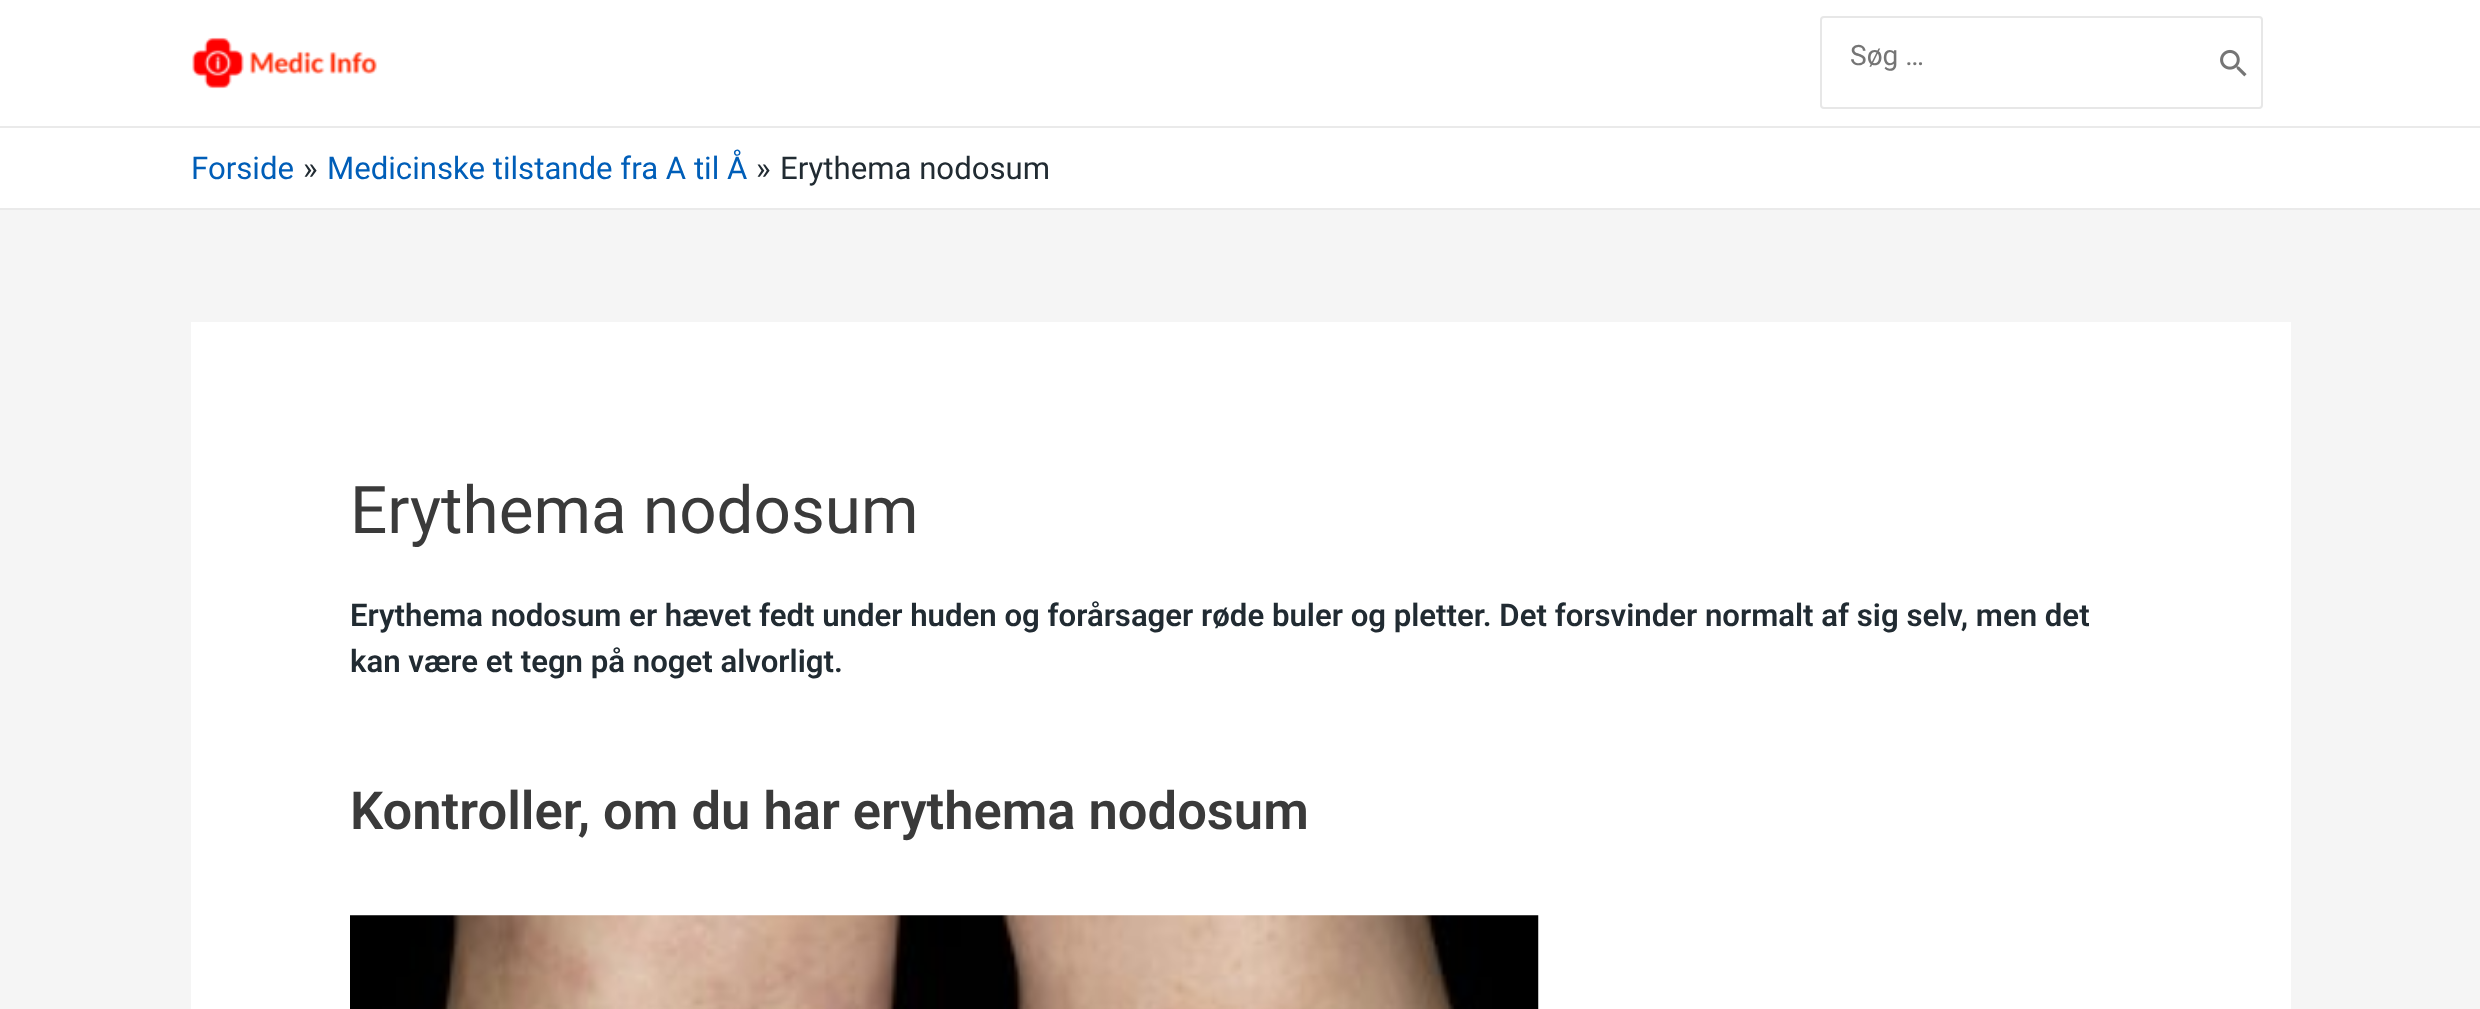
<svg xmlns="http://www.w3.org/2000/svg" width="2480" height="1009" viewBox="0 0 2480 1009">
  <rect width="100%" height="100%" fill="rgb(245,245,245)"/>
  <rect x="0" y="0" width="2480" height="126" fill="rgb(255,255,255)"/>
  <rect x="0" y="126" width="2480" height="2" fill="rgb(234,234,234)"/>
  <image x="192" y="37" width="185" height="52" href="pic1.png"/>
  <rect x="1821" y="17" width="441" height="91" rx="3" fill="none" stroke="rgb(231,231,231)" stroke-width="2"/>
  <text x="1850" y="65" font-family="Roboto" font-size="28" fill="rgb(117,117,117)">Søg …</text>
  <image x="2220" y="49" width="27" height="28" href="pic2.png"/>
  <rect x="0" y="128" width="2480" height="80" fill="rgb(255,255,255)"/>
  <rect x="0" y="208" width="2480" height="2" fill="rgb(234,234,234)"/>
  <text x="191" y="179" font-family="Roboto" font-size="31.17" fill="rgb(0,94,184)">Forside</text>
  <text x="303" y="179" font-family="Roboto" font-size="31.17" fill="rgb(33,43,50)">»</text>
  <text x="327" y="179" font-family="Roboto" font-size="31.17" fill="rgb(0,94,184)">Medicinske tilstande fra A til Å</text>
  <g font-family="Roboto" font-size="31.17" fill="rgb(33,43,50)">
    <text x="756" y="179">»</text>
    <text x="780" y="179">Erythema nodosum</text>
  </g>
  <rect x="191" y="322" width="2100" height="687" fill="rgb(255,255,255)"/>
  <text x="350" y="533" font-family="Roboto" font-size="65.6" fill="rgb(58,58,58)">Erythema nodosum</text>
  <g font-family="Roboto" font-size="31.17" font-weight="600" fill="rgb(33,43,50)">
    <text>
      <tspan x="350" y="626">Erythema nodosum er hævet fedt under huden og forårsager røde buler og pletter. Det forsvinder normalt af sig selv, men det</tspan>
      <tspan x="350" y="672">kan være et tegn på noget alvorligt.</tspan>
    </text>
  </g>
  <text x="350" y="829" font-family="Roboto" font-size="52.5" font-weight="600" fill="rgb(58,58,58)">Kontroller, om du har erythema nodosum</text>
  <image x="350" y="915" width="1189" height="94" href="pic3.png"/>
</svg>
